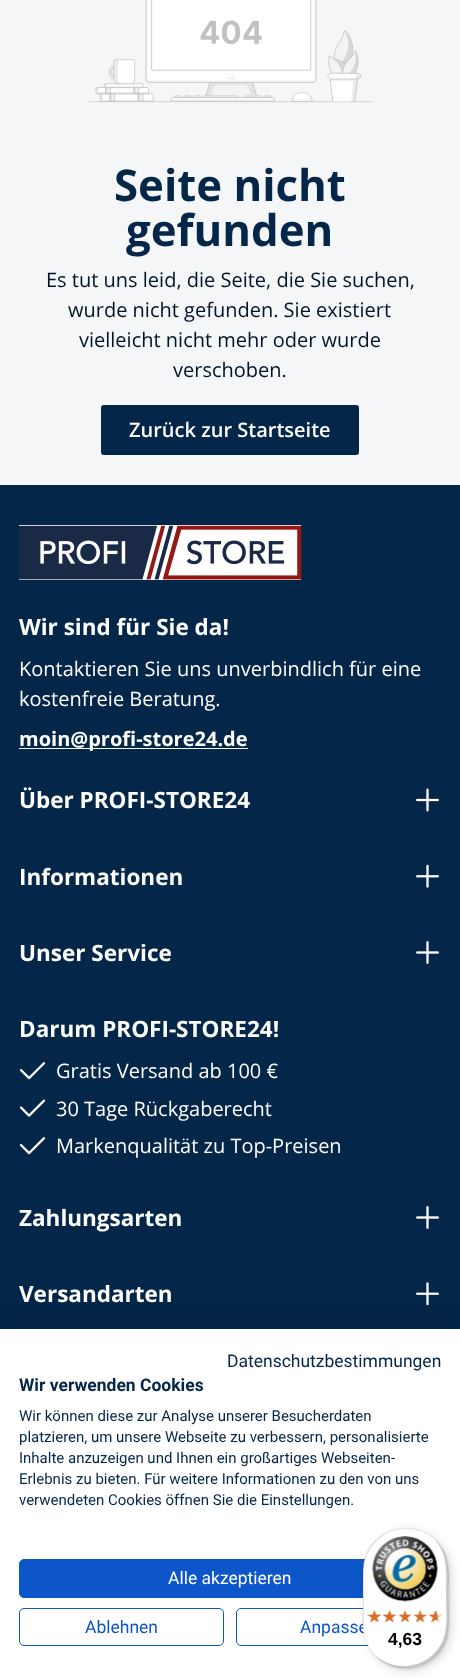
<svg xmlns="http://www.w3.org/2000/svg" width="460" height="1680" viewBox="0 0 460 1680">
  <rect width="100%" height="100%" fill="rgb(245,246,248)"/>
  <image x="88" y="0" width="285" height="103" href="pic1.png"/>
  <g font-family="Open Sans" font-size="43.75" font-weight="bold" fill="rgb(4,38,73)">
    <text x="114" y="201">Seite nicht</text>
    <text x="126" y="246">gefunden</text>
  </g>
  <g font-family="Open Sans" font-size="20" fill="rgb(0,21,42)">
    <text x="46" y="287">Es tut uns leid, die Seite, die Sie suchen,</text>
    <text x="68" y="317">wurde nicht gefunden. Sie existiert</text>
    <text x="79" y="347">vielleicht nicht mehr oder wurde</text>
    <text x="173" y="377">verschoben.</text>
  </g>
  <rect x="101.5" y="405.5" width="257" height="49" rx="2" fill="rgb(4,38,73)" stroke="rgb(4,38,73)"/>
  <text x="129" y="437" font-family="Open Sans" font-size="20" font-weight="600" fill="rgb(255,255,255)">Zurück zur Startseite</text>
  <rect x="0" y="485" width="460" height="844" fill="rgb(4,38,73)"/>
  <image x="19" y="525" width="283" height="55" href="pic2.png"/>
  <text x="19" y="635" font-family="Open Sans" font-size="22.5" font-weight="bold" fill="rgb(255,255,255)">Wir sind für Sie da!</text>
  <g font-family="Open Sans" font-size="20" fill="rgb(255,255,255)">
    <text>
      <tspan x="19" y="676">Kontaktieren Sie uns unverbindlich für eine</tspan>
      <tspan x="19" y="706">kostenfreie Beratung.</tspan>
    </text>
  </g>
  <rect x="19" y="748" width="229" height="1" fill="rgb(255,255,255)"/>
  <text x="19" y="746" font-family="Open Sans" font-size="20" font-weight="bold" fill="rgb(255,255,255)">moin@profi-store24.de</text>
  <text x="19" y="808" font-family="Open Sans" font-size="22.5" font-weight="bold" fill="rgb(255,255,255)">Über PROFI-STORE24</text>
  <image x="416" y="788" width="23" height="24" href="pic3.png"/>
  <text x="19" y="885" font-family="Open Sans" font-size="22.5" font-weight="bold" fill="rgb(255,255,255)">Informationen</text>
  <image x="416" y="864" width="23" height="24" href="pic4.png"/>
  <text x="19" y="961" font-family="Open Sans" font-size="22.5" font-weight="bold" fill="rgb(255,255,255)">Unser Service</text>
  <image x="416" y="941" width="23" height="23" href="pic5.png"/>
  <text x="19" y="1037" font-family="Open Sans" font-size="22.5" font-weight="bold" fill="rgb(255,255,255)">Darum PROFI-STORE24!</text>
  <image x="19" y="1062" width="27" height="18" href="pic6.png"/>
  <text x="56" y="1078" font-family="Open Sans" font-size="20" fill="rgb(255,255,255)">Gratis Versand ab 100 €</text>
  <image x="19" y="1099" width="27" height="18" href="pic7.png"/>
  <text x="56" y="1116" font-family="Open Sans" font-size="20" fill="rgb(255,255,255)">30 Tage Rückgaberecht</text>
  <image x="19" y="1137" width="27" height="18" href="pic6.png"/>
  <text x="56" y="1153" font-family="Open Sans" font-size="20" fill="rgb(255,255,255)">Markenqualität zu Top-Preisen</text>
  <text x="19" y="1226" font-family="Open Sans" font-size="22.5" font-weight="bold" fill="rgb(255,255,255)">Zahlungsarten</text>
  <image x="416" y="1206" width="23" height="23" href="pic5.png"/>
  <text x="19" y="1302" font-family="Open Sans" font-size="22.5" font-weight="bold" fill="rgb(255,255,255)">Versandarten</text>
  <image x="416" y="1282" width="23" height="24" href="pic8.png"/>
  <rect x="0" y="1329" width="460" height="351" fill="rgba(0,0,0,0.1)" filter="blur(15px)"/>
  <rect x="0" y="1329" width="460" height="351" fill="rgb(255,255,255)"/>
  <text x="227" y="1367" font-family="Roboto" font-size="17.5" fill="rgb(4,38,73)">Datenschutzbestimmungen</text>
  <text x="19" y="1391" font-family="Roboto" font-size="17.5" font-weight="bold" fill="rgb(4,38,73)">Wir verwenden Cookies</text>
  <g font-family="Roboto" font-size="15" fill="rgb(4,38,73)">
    <text>
      <tspan x="19" y="1421">Wir können diese zur Analyse unserer Besucherdaten</tspan>
      <tspan x="19" y="1442">platzieren, um unsere Webseite zu verbessern, personalisierte</tspan>
      <tspan x="19" y="1463">Inhalte anzuzeigen und Ihnen ein großartiges Webseiten-</tspan>
      <tspan x="19" y="1484">Erlebnis zu bieten. Für weitere Informationen zu den von uns</tspan>
      <tspan x="19" y="1505">verwendeten Cookies öffnen Sie die Einstellungen.</tspan>
    </text>
  </g>
  <rect x="19.5" y="1559.5" width="421" height="38" rx="4.5" fill="rgb(13,86,201)" stroke="rgb(13,86,201)"/>
  <text x="168" y="1584" font-family="Roboto" font-size="17.5" fill="rgb(255,255,255)">Alle akzeptieren</text>
  <rect x="19.5" y="1608.5" width="204" height="37" rx="4.5" fill="none" stroke="rgb(13,86,201)"/>
  <text x="85" y="1633" font-family="Roboto" font-size="17.5" fill="rgb(13,86,201)">Ablehnen</text>
  <rect x="236.5" y="1608.5" width="204" height="37" rx="4.5" fill="none" stroke="rgb(13,86,201)"/>
  <text x="300" y="1633" font-family="Roboto" font-size="17.5" fill="rgb(13,86,201)">Anpasse</text>
  <rect x="366" y="1531" width="85" height="140" rx="42.5" fill="rgba(0,0,0,0.15)" filter="blur(5px)"/>
  <rect x="364" y="1529" width="85" height="140" rx="42.5" fill="rgba(0,0,0,0.15)" filter="blur(1px)"/>
  <rect x="363" y="1528" width="85" height="140" rx="42.5" fill="rgb(255,255,255)"/>
  <path d="M406 1529C418 1529 428 1533 436 1541C415 1519 378 1526 366 1554C361 1566 363 1584 363 1598C363 1619 360 1640 376 1656C368 1648 364 1638 364 1626V1571C364 1548 383 1529 406 1529Z" fill="rgba(0,0,0,0.1)"/>
  <path d="M375 1655C395 1677 433 1670 445 1642C450 1630 448 1612 448 1598C448 1577 452 1555 435 1540C449 1555 446 1577 446 1596C446 1610 448 1628 443 1640C431 1668 396 1674 375 1655Z" fill="rgba(0,0,0,0.2)"/>
  <path d="M375 1656C396 1676 433 1670 445 1642C450 1630 448 1612 448 1598C448 1577 451 1556 436 1540C443 1548 447 1558 447 1569V1624C447 1648 428 1667 404 1667C393 1667 383 1663 375 1656Z" fill="rgba(50,50,50,0.2)"/>
  <path d="M375 1656C396 1676 433 1670 445 1642C450 1630 448 1612 448 1598C448 1577 451 1556 436 1540C443 1548 447 1558 447 1569V1624C447 1648 428 1667 404 1667C393 1667 383 1663 375 1656Z" fill="rgba(255,255,255,0.3)"/>
  <image x="372" y="1536" width="66" height="66" href="pic9.png"/>
  <image x="367" y="1610" width="14" height="13" href="pic10.png"/>
  <image x="384" y="1610" width="12" height="12" href="pic11.png"/>
  <image x="399" y="1610" width="12" height="13" href="pic12.png"/>
  <image x="414" y="1610" width="14" height="12" href="pic13.png"/>
  <image x="429" y="1610" width="14" height="13" href="pic14.png"/>
  <image x="367" y="1610" width="15" height="12" href="pic15.png"/>
  <image x="382" y="1610" width="15" height="12" href="pic16.png"/>
  <image x="398" y="1610" width="14" height="12" href="pic17.png"/>
  <image x="413" y="1610" width="14" height="12" href="pic18.png"/>
  <image x="428" y="1610" width="10" height="12" href="pic19.png"/>
  <text x="388" y="1645" font-family="Liberation Sans" font-size="17.5" font-weight="bold" fill="rgb(0,0,0)">4,63</text>
</svg>
